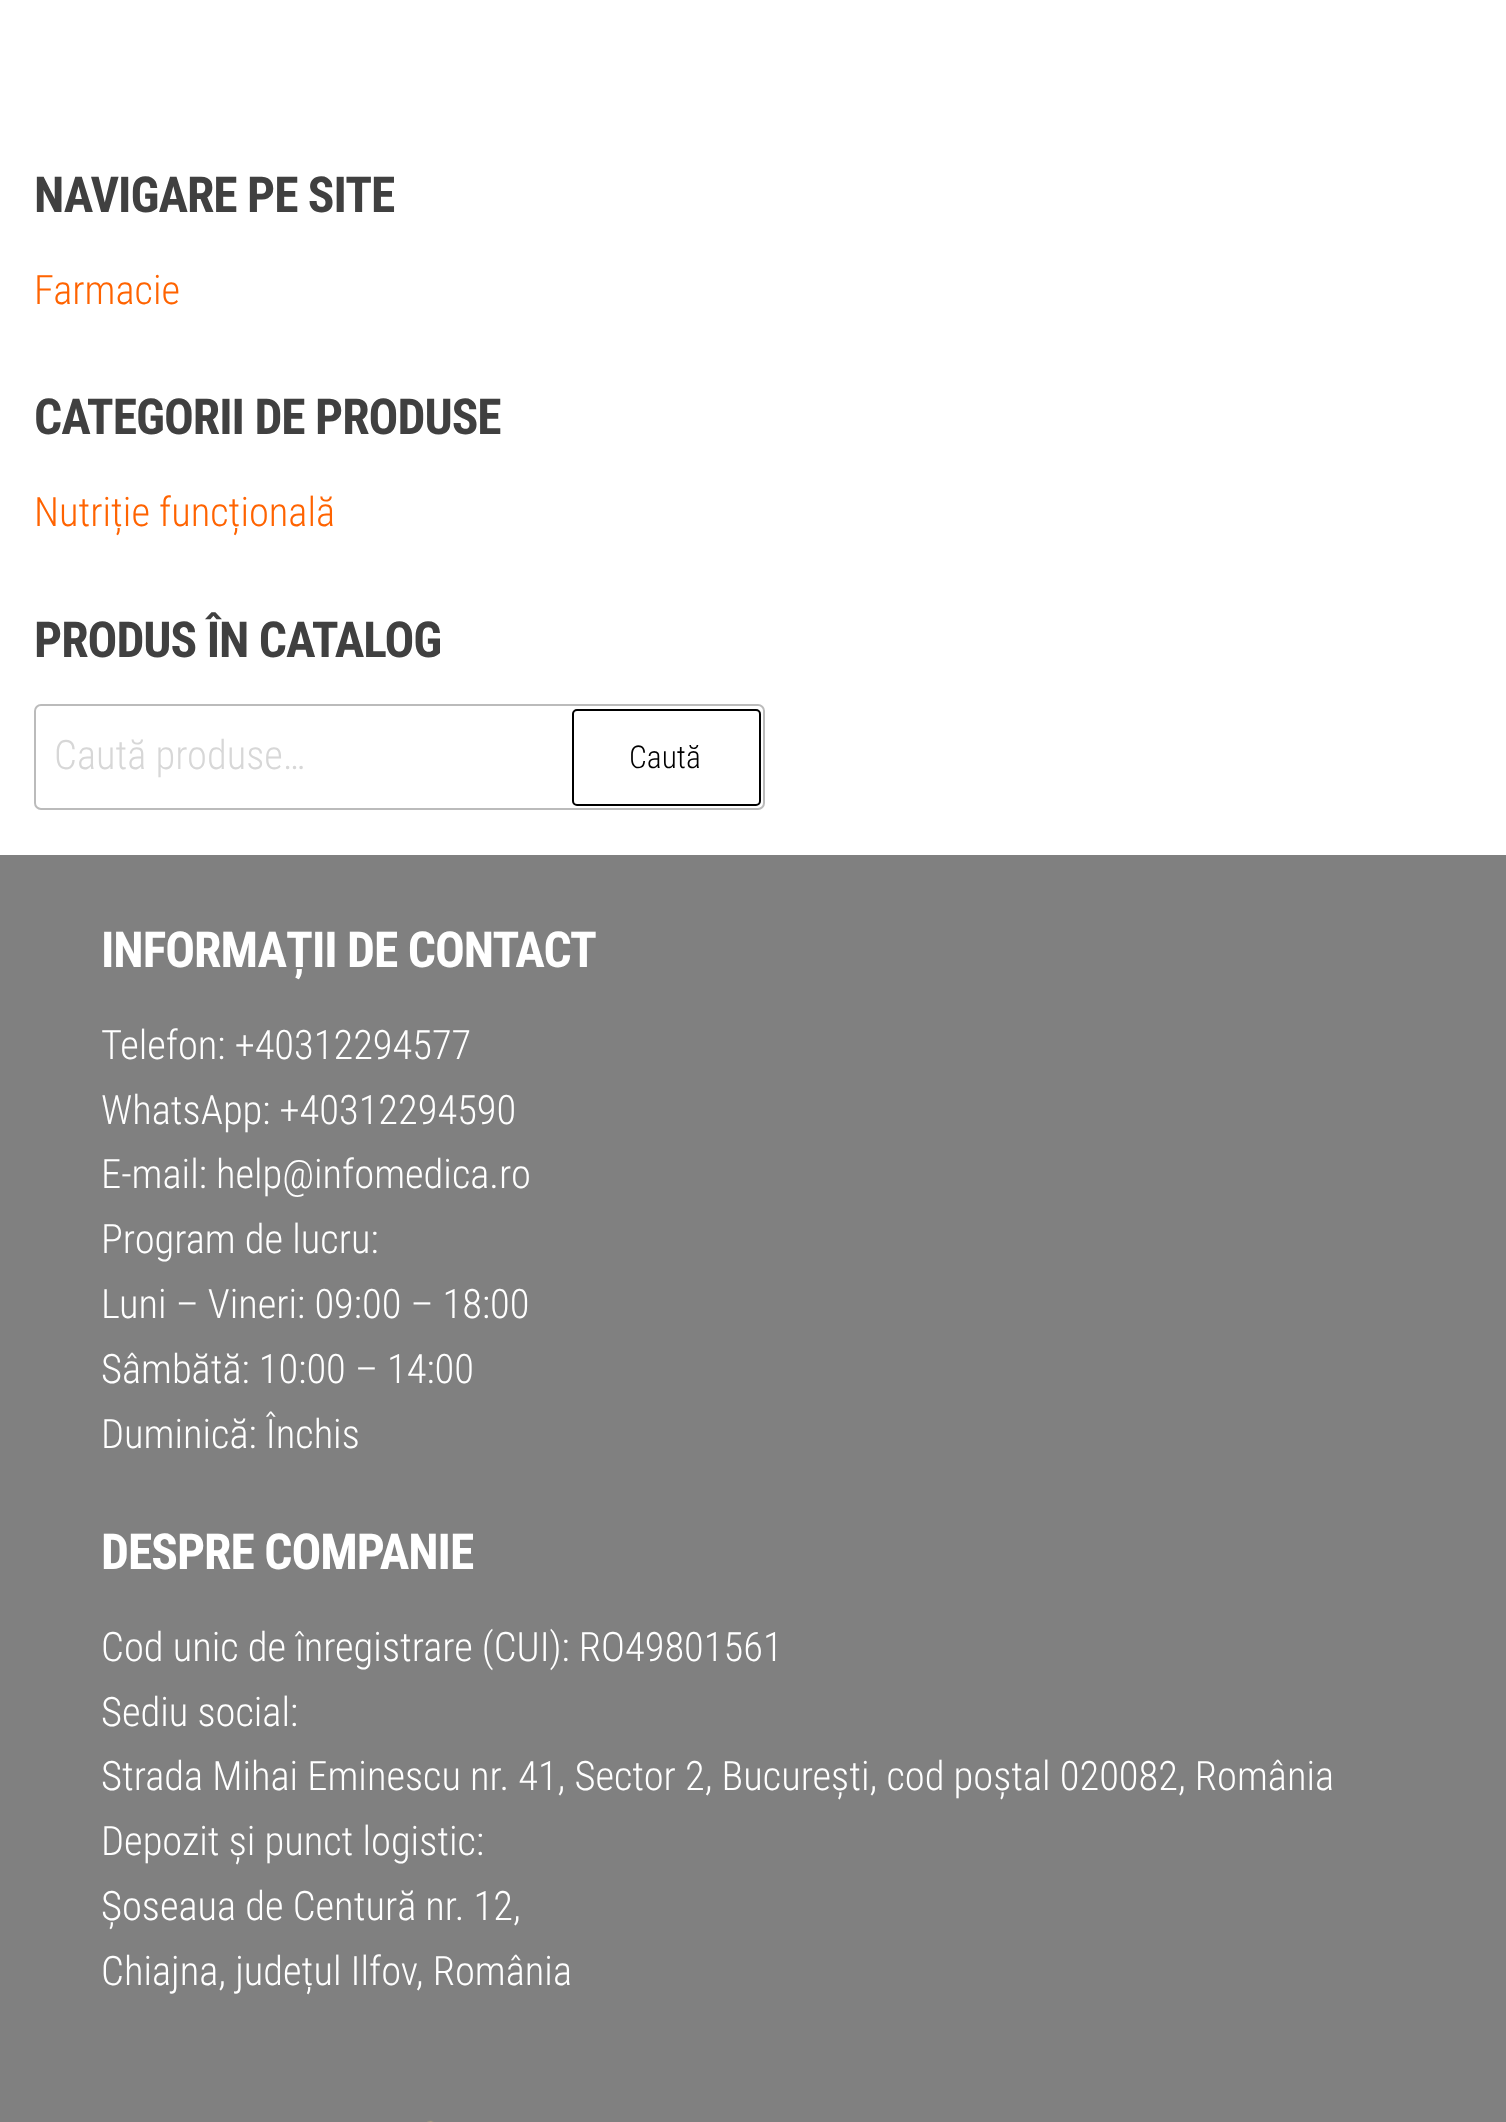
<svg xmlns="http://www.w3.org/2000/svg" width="1506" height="2122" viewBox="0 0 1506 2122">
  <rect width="100%" height="100%" fill="rgb(255,255,255)"/>
  <text x="34" y="212" font-family="Roboto Condensed" font-size="49.5" font-weight="bold" letter-spacing="-1" fill="rgb(64,64,64)">NAVIGARE PE SITE</text>
  <text x="34" y="304" font-family="Roboto Condensed" font-size="40.5" font-weight="300" fill="rgb(255,99,0)">Farmacie</text>
  <text x="34" y="434" font-family="Roboto Condensed" font-size="49.5" font-weight="bold" letter-spacing="-1" fill="rgb(64,64,64)">CATEGORII DE PRODUSE</text>
  <text x="34" y="526" font-family="Roboto Condensed" font-size="40.5" font-weight="300" fill="rgb(255,99,0)">Nutriție funcțională</text>
  <text x="34" y="657" font-family="Roboto Condensed" font-size="49.5" font-weight="bold" letter-spacing="-1" fill="rgb(64,64,64)">PRODUS ÎN CATALOG</text>
  <rect x="35" y="705" width="729" height="104" rx="6" fill="none" stroke="rgb(187,187,187)" stroke-width="2"/>
  <text x="54" y="769" font-family="Roboto Condensed" font-size="40.5" font-weight="300" fill="rgb(215,215,215)">Caută produse…</text>
  <rect x="573" y="710" width="187" height="95" rx="4" fill="none" stroke="rgb(0,0,0)" stroke-width="2"/>
  <text x="629" y="768" font-family="Roboto Condensed" font-size="31.5" font-weight="300" fill="rgb(0,0,0)">Caută</text>
  <rect x="0" y="855" width="1506" height="1267" fill="rgb(128,128,128)"/>
  <text x="101" y="967" font-family="Roboto Condensed" font-size="49.5" font-weight="bold" letter-spacing="-1" fill="rgb(255,255,255)">INFORMAȚII DE CONTACT</text>
  <g font-family="Roboto Condensed" font-size="40.5" font-weight="300" fill="rgb(255,255,255)">
    <text>
      <tspan x="101" y="1059">Telefon: +40312294577</tspan>
      <tspan x="101" y="1124">WhatsApp: +40312294590</tspan>
      <tspan x="101" y="1188">E-mail: help@infomedica.ro</tspan>
      <tspan x="101" y="1253">Program de lucru:</tspan>
      <tspan x="101" y="1318">Luni – Vineri: 09:00 – 18:00</tspan>
      <tspan x="101" y="1383">Sâmbătă: 10:00 – 14:00</tspan>
      <tspan x="101" y="1448">Duminică: Închis</tspan>
    </text>
  </g>
  <text x="101" y="1569" font-family="Roboto Condensed" font-size="49.5" font-weight="bold" letter-spacing="-1" fill="rgb(255,255,255)">DESPRE COMPANIE</text>
  <g font-family="Roboto Condensed" font-size="40.5" font-weight="300" fill="rgb(255,255,255)">
    <text>
      <tspan x="101" y="1661">Cod unic de înregistrare (CUI): RO49801561</tspan>
      <tspan x="101" y="1726">Sediu social:</tspan>
      <tspan x="101" y="1790">Strada Mihai Eminescu nr. 41, Sector 2, București, cod poștal 020082, România</tspan>
      <tspan x="101" y="1855">Depozit și punct logistic:</tspan>
      <tspan x="101" y="1920">Șoseaua de Centură nr. 12,</tspan>
      <tspan x="101" y="1985">Chiajna, județul Ilfov, România</tspan>
    </text>
  </g>
  <image x="427" y="2120" width="7" height="2" href="pic1.png"/>
</svg>
